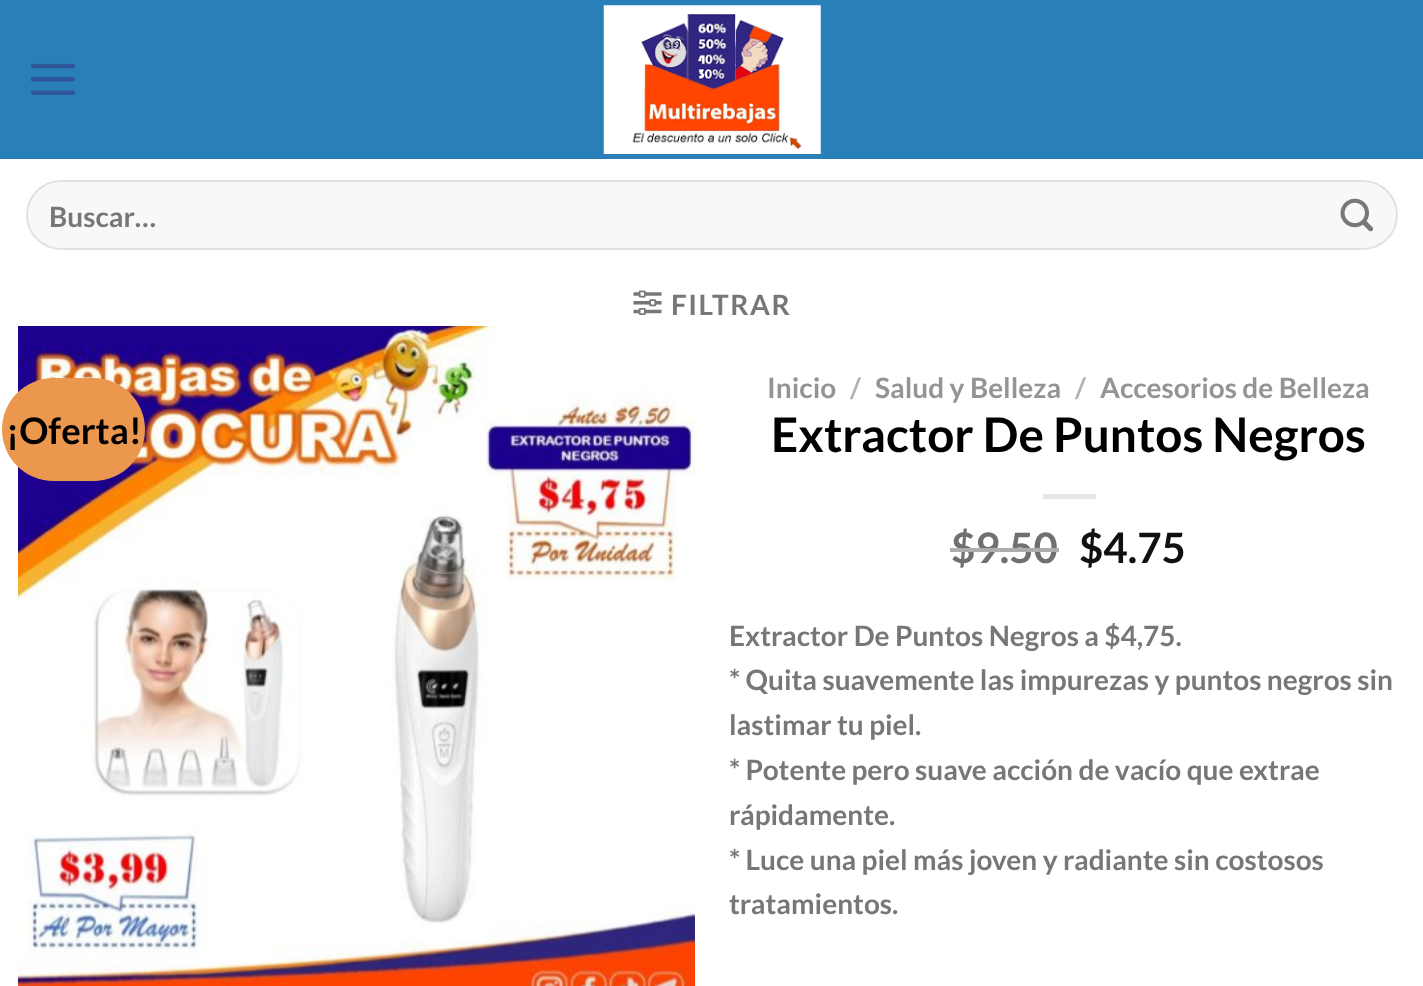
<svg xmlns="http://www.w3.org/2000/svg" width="1423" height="986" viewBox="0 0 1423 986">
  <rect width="100%" height="100%" fill="rgb(255,255,255)"/>
  <rect x="0" y="0" width="1423" height="159" fill="rgb(41,128,185)"/>
  <image x="30" y="63" width="45" height="32" href="pic1.png"/>
  <image x="603" y="5" width="218" height="149" href="pic2.png"/>
  <rect x="26" y="180" width="1372" height="70" rx="35" fill="rgb(248,248,248)"/>
  <rect x="27" y="181" width="1370" height="68" rx="34" fill="none" stroke="rgba(0,0,0,0.09)" stroke-width="2"/>
  <text x="49" y="227" font-family="Lato" font-size="28" font-weight="bold" fill="rgb(119,119,119)">Buscar…</text>
  <image x="1340" y="198" width="34" height="34" href="pic3.png"/>
  <image x="633" y="290" width="29" height="25" href="pic4.png"/>
  <text x="671" y="315" font-family="Lato" font-size="28" font-weight="bold" letter-spacing="1.5" fill="rgb(119,119,119)">FILTRAR</text>
  <image x="18" y="326" width="677" height="660" href="pic5.png"/>
  <rect x="2" y="378" width="143" height="103" rx="51.5" fill="rgb(235,152,78)"/>
  <text x="6" y="444" font-family="Lato" font-size="36.5" font-weight="bold" fill="rgb(0,0,0)">¡Oferta!</text>
  <text x="767" y="398" font-family="Lato" font-size="28" font-weight="bold" fill="rgb(148,148,148)">Inicio</text>
  <text x="850" y="398" font-family="Lato" font-size="28" font-weight="bold" fill="rgb(178,178,178)">/</text>
  <text x="875" y="398" font-family="Lato" font-size="28" font-weight="bold" fill="rgb(148,148,148)">Salud y Belleza</text>
  <text x="1075" y="398" font-family="Lato" font-size="28" font-weight="bold" fill="rgb(178,178,178)">/</text>
  <text x="1100" y="398" font-family="Lato" font-size="28" font-weight="bold" fill="rgb(148,148,148)">Accesorios de Belleza</text>
  <text x="771" y="452" font-family="Lato" font-size="47.6" font-weight="bold" fill="rgb(0,0,0)">Extractor De Puntos Negros</text>
  <rect x="1043" y="494" width="53" height="5" fill="rgb(230,230,230)"/>
  <text x="951" y="563" font-family="Lato" font-size="42" font-weight="bold" fill="rgb(112,112,112)">$9.50</text>
  <rect x="950" y="548" width="109" height="4" fill="rgb(173,173,173)"/>
  <text x="1079" y="563" font-family="Lato" font-size="42" font-weight="bold" fill="rgb(17,17,17)">$4.75</text>
  <g font-family="Lato" font-size="28" font-weight="bold" fill="rgb(119,119,119)">
    <text>
      <tspan x="729" y="646">Extractor De Puntos Negros a $4,75.</tspan>
      <tspan x="729" y="690">* Quita suavemente las impurezas y puntos negros sin</tspan>
      <tspan x="729" y="735">lastimar tu piel.</tspan>
      <tspan x="729" y="780">* Potente pero suave acción de vacío que extrae</tspan>
      <tspan x="729" y="825">rápidamente.</tspan>
      <tspan x="729" y="870">* Luce una piel más joven y radiante sin costosos</tspan>
      <tspan x="729" y="914">tratamientos.</tspan>
    </text>
  </g>
</svg>
